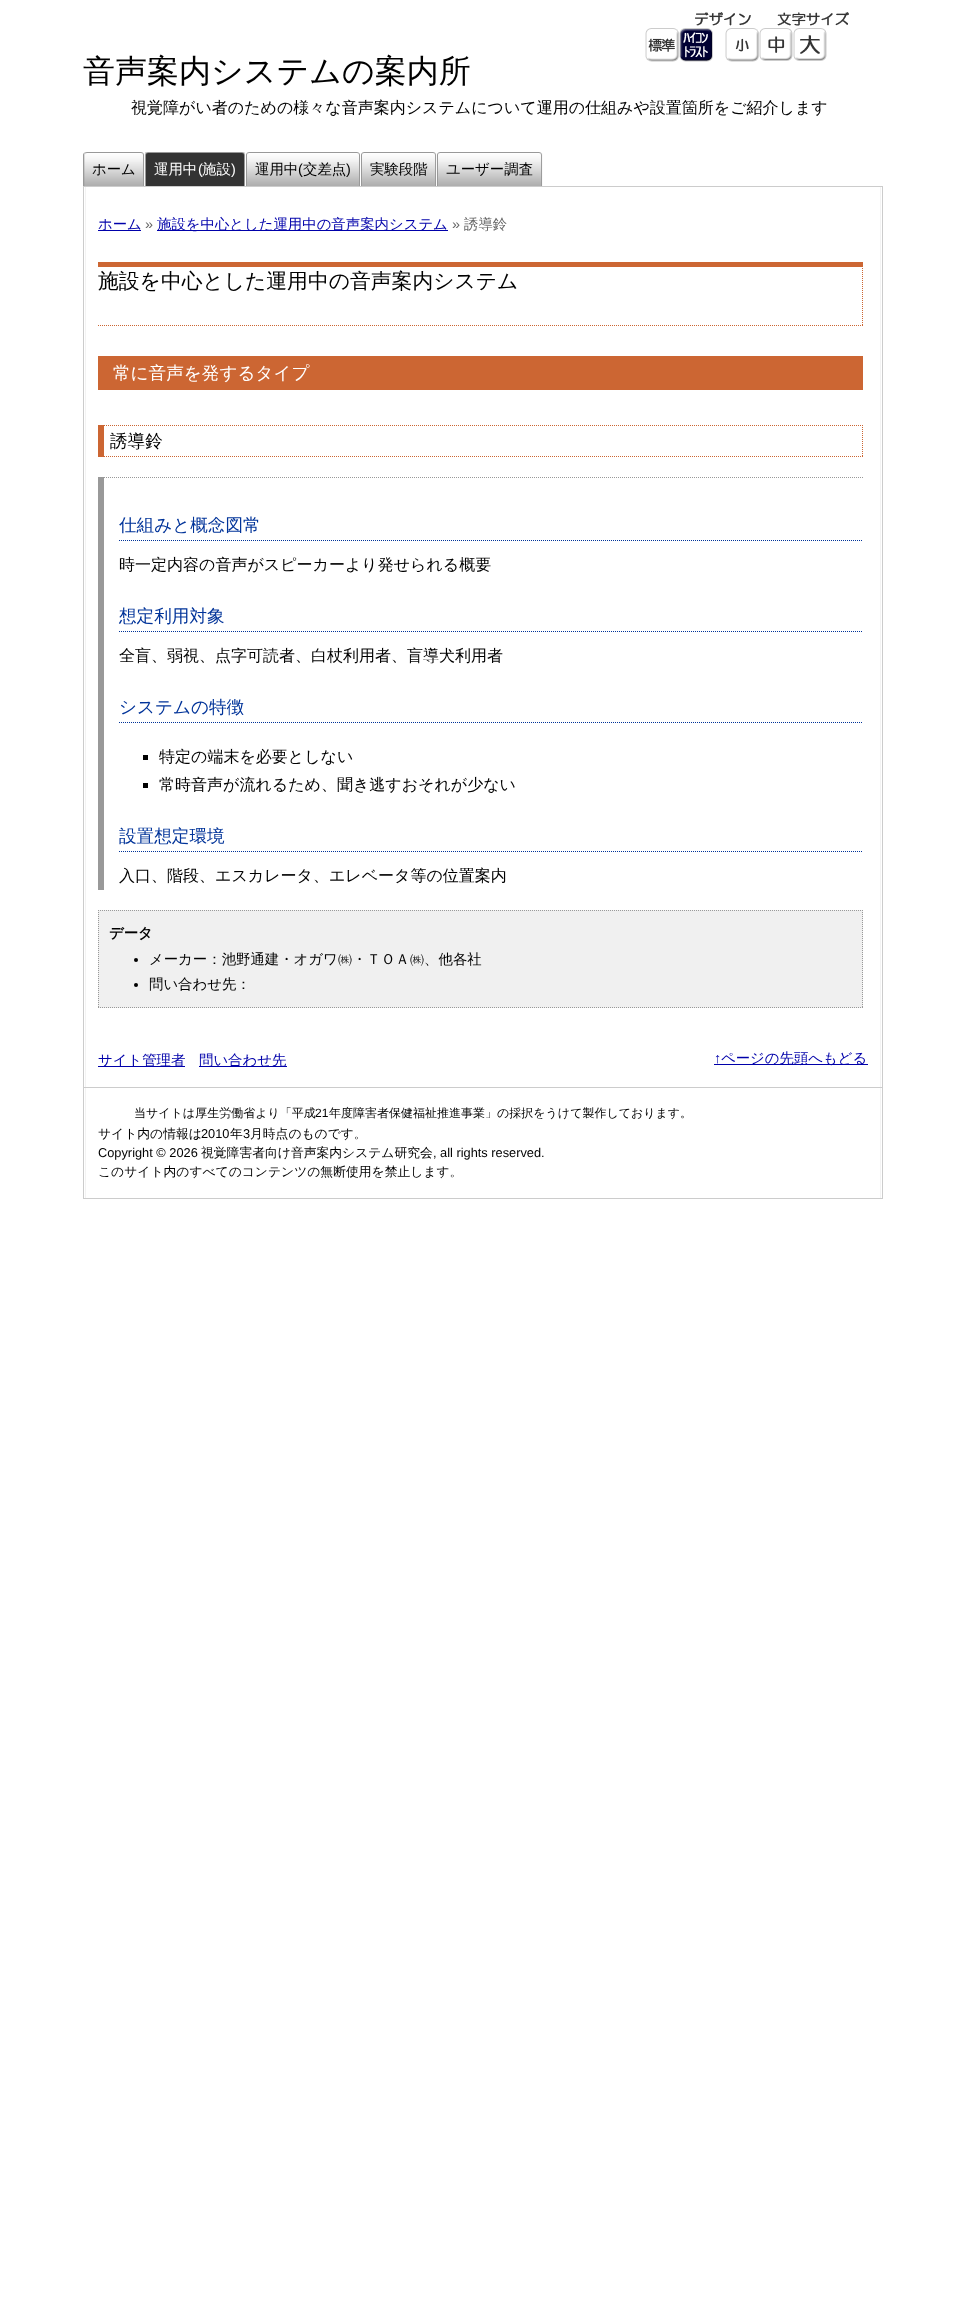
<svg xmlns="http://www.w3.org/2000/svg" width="965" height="2304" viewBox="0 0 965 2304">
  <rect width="100%" height="100%" fill="rgb(255,255,255)"/>
  <image x="695" y="12" width="56" height="14" href="pic1.png"/>
  <image x="645" y="28" width="34" height="34" href="pic2.png"/>
  <image x="679" y="28" width="34" height="34" href="pic3.png"/>
  <image x="777" y="12" width="72" height="14" href="pic4.png"/>
  <image x="725" y="28" width="34" height="34" href="pic5.png"/>
  <image x="759" y="28" width="34" height="33" href="pic6.png"/>
  <image x="793" y="28" width="34" height="33" href="pic7.png"/>
  <text x="83" y="82" font-family="WenQuanYi Zen Hei" font-size="32" font-weight="500" fill="rgb(0,0,0)">音声案内システムの案内所</text>
  <text x="131" y="113" font-family="WenQuanYi Zen Hei" font-size="16" font-weight="500" fill="rgb(0,0,0)">視覚障がい者のための様々な音声案内システムについて運用の仕組みや設置箇所をご紹介します</text>
  <rect x="83" y="186" width="800" height="1" fill="rgb(204,204,204)"/>
  <image x="83" y="152" width="5" height="34" href="pic8.png"/>
  <image x="88" y="152" width="57" height="34" href="pic9.png"/>
  <text x="92" y="174" font-family="WenQuanYi Zen Hei" font-size="14.4" font-weight="500" fill="rgb(0,0,0)">ホーム</text>
  <image x="145" y="152" width="4" height="34" href="pic10.png"/>
  <image x="149" y="152" width="96" height="34" href="pic11.png"/>
  <text x="154" y="174" font-family="WenQuanYi Zen Hei" font-size="14.4" font-weight="500" fill="rgb(255,255,255)">運用中</text>
  <text x="198" y="174" font-family="Liberation Sans" font-size="14.4" fill="rgb(255,255,255)">(</text>
  <text x="202" y="174" font-family="WenQuanYi Zen Hei" font-size="14.4" font-weight="500" fill="rgb(255,255,255)">施設</text>
  <text x="231" y="174" font-family="Liberation Sans" font-size="14.4" fill="rgb(255,255,255)">)</text>
  <image x="246" y="152" width="4" height="34" href="pic12.png"/>
  <image x="250" y="152" width="110" height="34" href="pic13.png"/>
  <text x="255" y="174" font-family="WenQuanYi Zen Hei" font-size="14.4" font-weight="500" fill="rgb(0,0,0)">運用中</text>
  <text x="298" y="174" font-family="Liberation Sans" font-size="14.4" fill="rgb(0,0,0)">(</text>
  <text x="303" y="174" font-family="WenQuanYi Zen Hei" font-size="14.4" font-weight="500" fill="rgb(0,0,0)">交差点</text>
  <text x="346" y="174" font-family="Liberation Sans" font-size="14.4" fill="rgb(0,0,0)">)</text>
  <image x="361" y="152" width="4" height="34" href="pic12.png"/>
  <image x="365" y="152" width="72" height="34" href="pic14.png"/>
  <text x="370" y="174" font-family="WenQuanYi Zen Hei" font-size="14.4" font-weight="500" fill="rgb(0,0,0)">実験段階</text>
  <image x="437" y="152" width="4" height="34" href="pic12.png"/>
  <image x="441" y="152" width="102" height="34" href="pic15.png"/>
  <text x="446" y="174" font-family="WenQuanYi Zen Hei" font-size="14.4" font-weight="500" fill="rgb(0,0,0)">ユーザー調査</text>
  <image x="83" y="187" width="800" height="1011" href="pic16.png"/>
  <rect x="98" y="230" width="43" height="1" fill="rgb(0,0,170)"/>
  <text x="98" y="229" font-family="WenQuanYi Zen Hei" font-size="14.4" font-weight="500" fill="rgb(0,0,170)">ホーム</text>
  <text x="145" y="229" font-family="Liberation Sans" font-size="14.4" fill="rgb(102,102,102)">»</text>
  <rect x="157" y="230" width="291" height="1" fill="rgb(0,0,170)"/>
  <text x="157" y="229" font-family="WenQuanYi Zen Hei" font-size="14.4" font-weight="500" fill="rgb(0,0,170)">施設を中心とした運用中の音声案内システム</text>
  <text x="452" y="229" font-family="Liberation Sans" font-size="14.4" fill="rgb(102,102,102)">»</text>
  <text x="464" y="229" font-family="WenQuanYi Zen Hei" font-size="14.4" font-weight="500" fill="rgb(102,102,102)">誘導鈴</text>
  <rect x="98" y="262" width="765" height="5" fill="rgb(204,102,51)"/>
  <path d="M862.5 262V326" fill="none" stroke="rgb(204,102,51)" stroke-dasharray="1 1"/>
  <path d="M98 325.5H863" fill="none" stroke="rgb(204,102,51)" stroke-dasharray="1 1"/>
  <text x="98" y="288" font-family="WenQuanYi Zen Hei" font-size="20.8" font-weight="500" fill="rgb(0,0,0)">施設を中心とした運用中の音声案内システム</text>
  <rect x="98" y="356" width="765" height="34" fill="rgb(204,102,51)"/>
  <text x="113" y="379" font-family="WenQuanYi Zen Hei" font-size="17.6" font-weight="500" fill="rgb(255,255,255)">常に音声を発するタイプ</text>
  <path d="M98 425.5H863" fill="none" stroke="rgb(204,102,51)" stroke-dasharray="1 1"/>
  <path d="M862.5 425V457" fill="none" stroke="rgb(204,102,51)" stroke-dasharray="1 1"/>
  <path d="M98 456.5H863" fill="none" stroke="rgb(204,102,51)" stroke-dasharray="1 1"/>
  <rect x="98" y="425" width="6" height="32" fill="rgb(204,102,51)"/>
  <text x="110" y="447" font-family="WenQuanYi Zen Hei" font-size="17.6" font-weight="500" fill="rgb(0,0,0)">誘導鈴</text>
  <path d="M98 477.5H863" fill="none" stroke="rgb(153,153,153)" stroke-dasharray="1 1"/>
  <rect x="98" y="477" width="6" height="413" fill="rgb(153,153,153)"/>
  <path d="M119 540.5H863" fill="none" stroke="rgb(0,51,153)" stroke-dasharray="1 1"/>
  <text x="119" y="531" font-family="WenQuanYi Zen Hei" font-size="17.6" font-weight="500" fill="rgb(0,51,153)">仕組みと概念図常</text>
  <text x="119" y="570" font-family="WenQuanYi Zen Hei" font-size="16" font-weight="500" fill="rgb(0,0,0)">時一定内容の音声がスピーカーより発せられる概要</text>
  <path d="M119 631.5H863" fill="none" stroke="rgb(0,51,153)" stroke-dasharray="1 1"/>
  <text x="119" y="622" font-family="WenQuanYi Zen Hei" font-size="17.6" font-weight="500" fill="rgb(0,51,153)">想定利用対象</text>
  <text x="119" y="661" font-family="WenQuanYi Zen Hei" font-size="16" font-weight="500" fill="rgb(0,0,0)">全盲、弱視、点字可読者、白杖利用者、盲導犬利用者</text>
  <path d="M119 722.5H863" fill="none" stroke="rgb(0,51,153)" stroke-dasharray="1 1"/>
  <text x="119" y="713" font-family="WenQuanYi Zen Hei" font-size="17.6" font-weight="500" fill="rgb(0,51,153)">システムの特徴</text>
  <rect x="143" y="755" width="5" height="5" fill="rgb(0,0,0)"/>
  <text x="159" y="762" font-family="WenQuanYi Zen Hei" font-size="16" font-weight="500" fill="rgb(0,0,0)">特定の端末を必要としない</text>
  <rect x="143" y="783" width="5" height="5" fill="rgb(0,0,0)"/>
  <text x="159" y="790" font-family="WenQuanYi Zen Hei" font-size="16" font-weight="500" fill="rgb(0,0,0)">常時音声が流れるため、聞き逃すおそれが少ない</text>
  <path d="M119 851.5H863" fill="none" stroke="rgb(0,51,153)" stroke-dasharray="1 1"/>
  <text x="119" y="842" font-family="WenQuanYi Zen Hei" font-size="17.6" font-weight="500" fill="rgb(0,51,153)">設置想定環境</text>
  <text x="119" y="881" font-family="WenQuanYi Zen Hei" font-size="16" font-weight="500" fill="rgb(0,0,0)">入口、階段、エスカレータ、エレベータ等の位置案内</text>
  <rect x="98" y="910" width="765" height="98" fill="rgb(240,240,240)"/>
  <path d="M98 910.5H863" fill="none" stroke="rgb(153,153,153)" stroke-dasharray="1 1"/>
  <path d="M862.5 910V1008" fill="none" stroke="rgb(153,153,153)" stroke-dasharray="1 1"/>
  <path d="M98 1007.5H863" fill="none" stroke="rgb(153,153,153)" stroke-dasharray="1 1"/>
  <path d="M98.5 910V1008" fill="none" stroke="rgb(153,153,153)" stroke-dasharray="1 1"/>
  <text x="109" y="938" font-family="WenQuanYi Zen Hei" font-size="14.4" font-weight="bold" fill="rgb(0,0,0)">データ</text>
  <circle cx="136" cy="960" r="2" fill="rgb(0,0,0)"/>
  <text x="149" y="964" font-family="WenQuanYi Zen Hei" font-size="14.4" font-weight="500" fill="rgb(0,0,0)">メーカー：池野通建・オガワ㈱・ＴＯＡ㈱、他各社</text>
  <circle cx="136" cy="985" r="2" fill="rgb(0,0,0)"/>
  <text x="149" y="989" font-family="WenQuanYi Zen Hei" font-size="14.4" font-weight="500" fill="rgb(0,0,0)">問い合わせ先：</text>
  <rect x="83" y="1198" width="800" height="1" fill="rgb(204,204,204)"/>
  <rect x="98" y="1066" width="87" height="1" fill="rgb(0,0,170)"/>
  <text x="98" y="1065" font-family="WenQuanYi Zen Hei" font-size="14.4" font-weight="500" fill="rgb(0,0,170)">サイト管理者</text>
  <rect x="199" y="1066" width="88" height="1" fill="rgb(0,0,170)"/>
  <text x="199" y="1065" font-family="WenQuanYi Zen Hei" font-size="14.4" font-weight="500" fill="rgb(0,0,170)">問い合わせ先</text>
  <text x="714" y="1063" font-family="Liberation Sans" font-size="14.4" fill="rgb(0,0,170)">↑</text>
  <rect x="714" y="1064" width="154" height="1" fill="rgb(0,0,170)"/>
  <text x="721" y="1063" font-family="WenQuanYi Zen Hei" font-size="14.4" font-weight="500" fill="rgb(0,0,170)">ページの先頭へもどる</text>
  <rect x="83" y="1087" width="800" height="1" fill="rgb(204,204,204)"/>
  <text x="134" y="1117" font-family="WenQuanYi Zen Hei" font-size="12" font-weight="500" fill="rgb(0,0,0)">当サイトは厚生労働省より「平成</text>
  <text x="315" y="1117" font-family="Liberation Sans" font-size="12" fill="rgb(0,0,0)">21</text>
  <text x="329" y="1117" font-family="WenQuanYi Zen Hei" font-size="12" font-weight="500" fill="rgb(0,0,0)">年度障害者保健福祉推進事業」の採択をうけて製作しております。</text>
  <text x="98" y="1138" font-family="WenQuanYi Zen Hei" font-size="12.8" font-weight="500" fill="rgb(0,0,0)">サイト内の情報は</text>
  <text x="201" y="1138" font-family="Liberation Sans" font-size="12.8" fill="rgb(0,0,0)">2010</text>
  <text x="230" y="1138" font-family="WenQuanYi Zen Hei" font-size="12.8" font-weight="500" fill="rgb(0,0,0)">年</text>
  <text x="243" y="1138" font-family="Liberation Sans" font-size="12.8" fill="rgb(0,0,0)">3</text>
  <text x="250" y="1138" font-family="WenQuanYi Zen Hei" font-size="12.8" font-weight="500" fill="rgb(0,0,0)">月時点のものです。</text>
  <text x="98" y="1157" font-family="Liberation Sans" font-size="12.8" fill="rgb(0,0,0)">Copyright © 2026</text>
  <text x="201" y="1157" font-family="WenQuanYi Zen Hei" font-size="12.8" font-weight="500" fill="rgb(0,0,0)">視覚障害者向け音声案内システム研究会</text>
  <text x="433" y="1157" font-family="Liberation Sans" font-size="12.8" fill="rgb(0,0,0)">, all rights reserved.</text>
  <text x="98" y="1176" font-family="WenQuanYi Zen Hei" font-size="12.8" font-weight="500" fill="rgb(0,0,0)">このサイト内のすべてのコンテンツの無断使用を禁止します。</text>
</svg>
